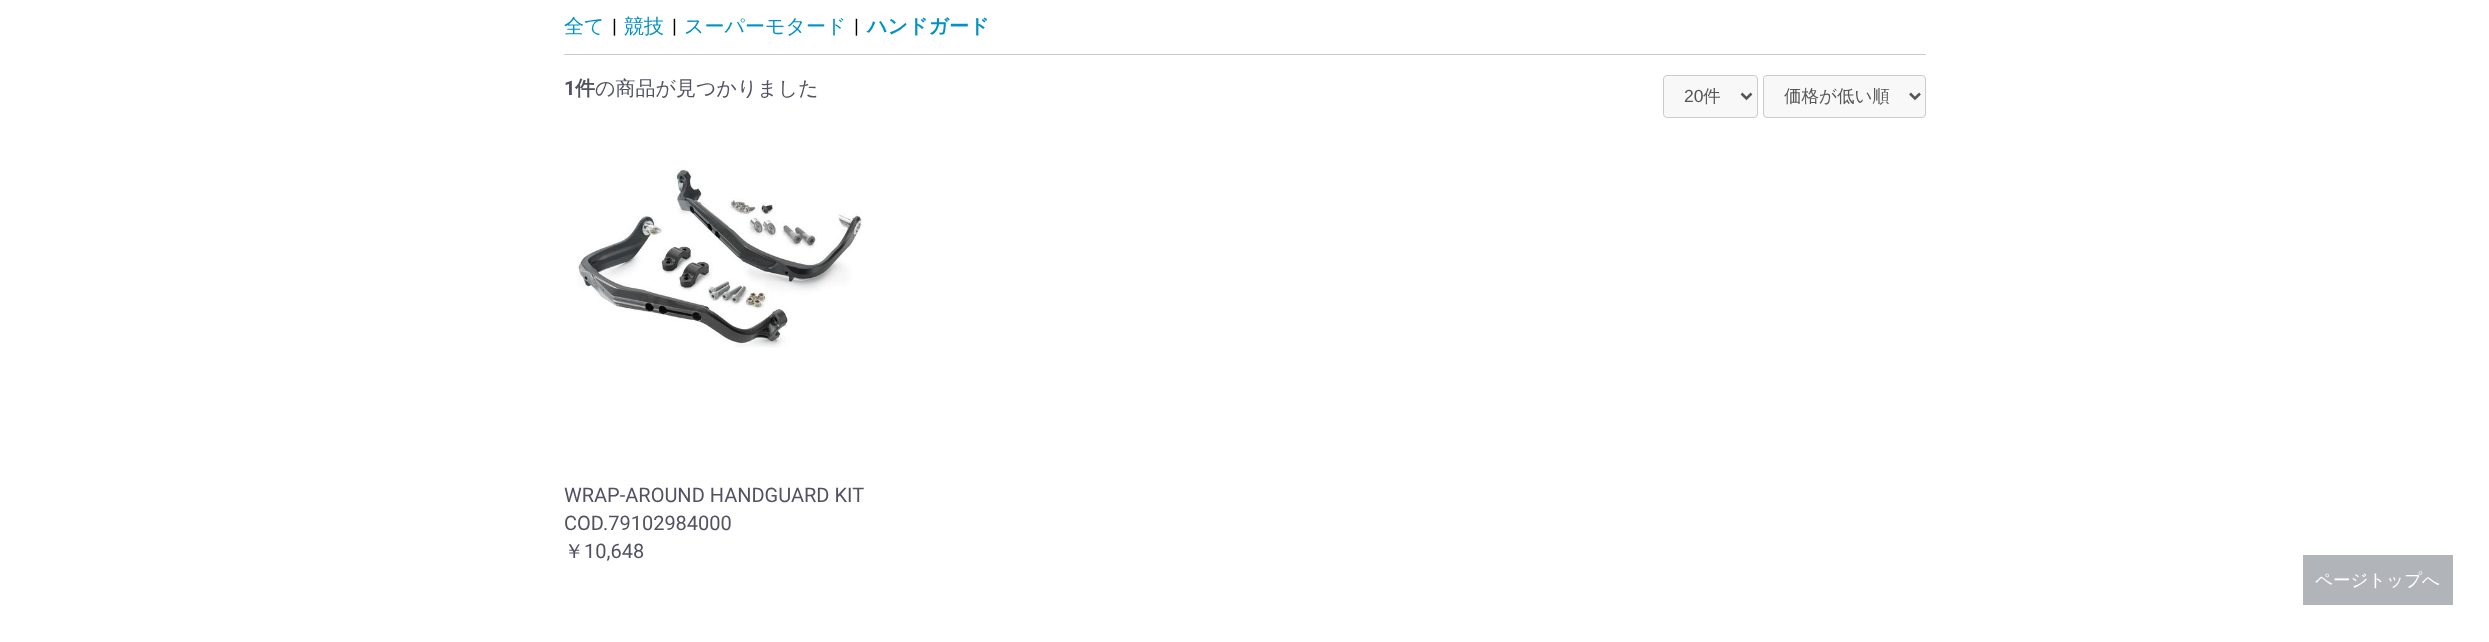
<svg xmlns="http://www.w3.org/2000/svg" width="2489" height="642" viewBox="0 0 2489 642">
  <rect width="100%" height="100%" fill="rgb(255,255,255)"/>
  <text x="564" y="33" font-family="WenQuanYi Zen Hei" font-size="20" font-weight="500" fill="rgb(0,146,196)">全て</text>
  <text x="612" y="33" font-family="Roboto" font-size="20" fill="rgb(0,0,0)">|</text>
  <text x="624" y="33" font-family="WenQuanYi Zen Hei" font-size="20" font-weight="500" fill="rgb(0,146,196)">競技</text>
  <text x="672" y="33" font-family="Roboto" font-size="20" fill="rgb(0,0,0)">|</text>
  <text x="684" y="33" font-family="WenQuanYi Zen Hei" font-size="20" font-weight="500" fill="rgb(0,146,196)">スーパーモタード</text>
  <text x="854" y="33" font-family="Roboto" font-size="20" fill="rgb(0,0,0)">|</text>
  <text x="867" y="33" font-family="WenQuanYi Zen Hei" font-size="20" font-weight="bold" fill="rgb(0,146,196)">ハンドガード</text>
  <rect x="564" y="54" width="1362" height="1" fill="rgb(204,204,204)"/>
  <text x="564" y="95" font-family="Roboto" font-size="20" font-weight="bold" fill="rgb(82,82,99)">1</text>
  <text x="575" y="95" font-family="WenQuanYi Zen Hei" font-size="20" font-weight="bold" fill="rgb(82,82,99)">件</text>
  <text x="595" y="95" font-family="WenQuanYi Zen Hei" font-size="20" font-weight="500" fill="rgb(82,82,99)">の商品が見つかりました</text>
  <rect x="1663.5" y="75.5" width="94" height="42" rx="3.5" fill="rgb(248,248,248)" stroke="rgb(204,204,204)"/>
  <path d="M1741.5 93.5L1746.5 98.5L1751.5 93.5" fill="none" stroke="rgb(85,85,85)" stroke-width="2.5"/>
  <text x="1684" y="102" font-family="Liberation Sans" font-size="17.5" fill="rgb(85,85,85)">20</text>
  <text x="1703" y="102" font-family="WenQuanYi Zen Hei" font-size="17.5" font-weight="500" fill="rgb(85,85,85)">件</text>
  <rect x="1763.5" y="75.5" width="162" height="42" rx="3.5" fill="rgb(248,248,248)" stroke="rgb(204,204,204)"/>
  <path d="M1910 93.5L1915 98.5L1920 93.5" fill="none" stroke="rgb(85,85,85)" stroke-width="2.5"/>
  <text x="1784" y="102" font-family="WenQuanYi Zen Hei" font-size="17.5" font-weight="500" fill="rgb(85,85,85)">価格が低い順</text>
  <image x="577" y="167" width="285" height="181" href="pic1.png"/>
  <g font-family="Roboto" font-size="20" fill="rgb(82,82,99)">
    <text>
      <tspan x="564" y="502">WRAP-AROUND HANDGUARD KIT</tspan>
      <tspan x="564" y="530">COD.79102984000</tspan>
    </text>
  </g>
  <text x="564" y="558" font-family="WenQuanYi Zen Hei" font-size="20" font-weight="500" fill="rgb(82,82,99)">￥</text>
  <text x="584" y="558" font-family="Roboto" font-size="20" fill="rgb(82,82,99)">10,648</text>
  <rect x="2303" y="555" width="150" height="50" fill="rgb(177,181,186)"/>
  <text x="2315" y="586" font-family="WenQuanYi Zen Hei" font-size="17.5" font-weight="500" fill="rgb(255,255,255)">ページトップへ</text>
</svg>
